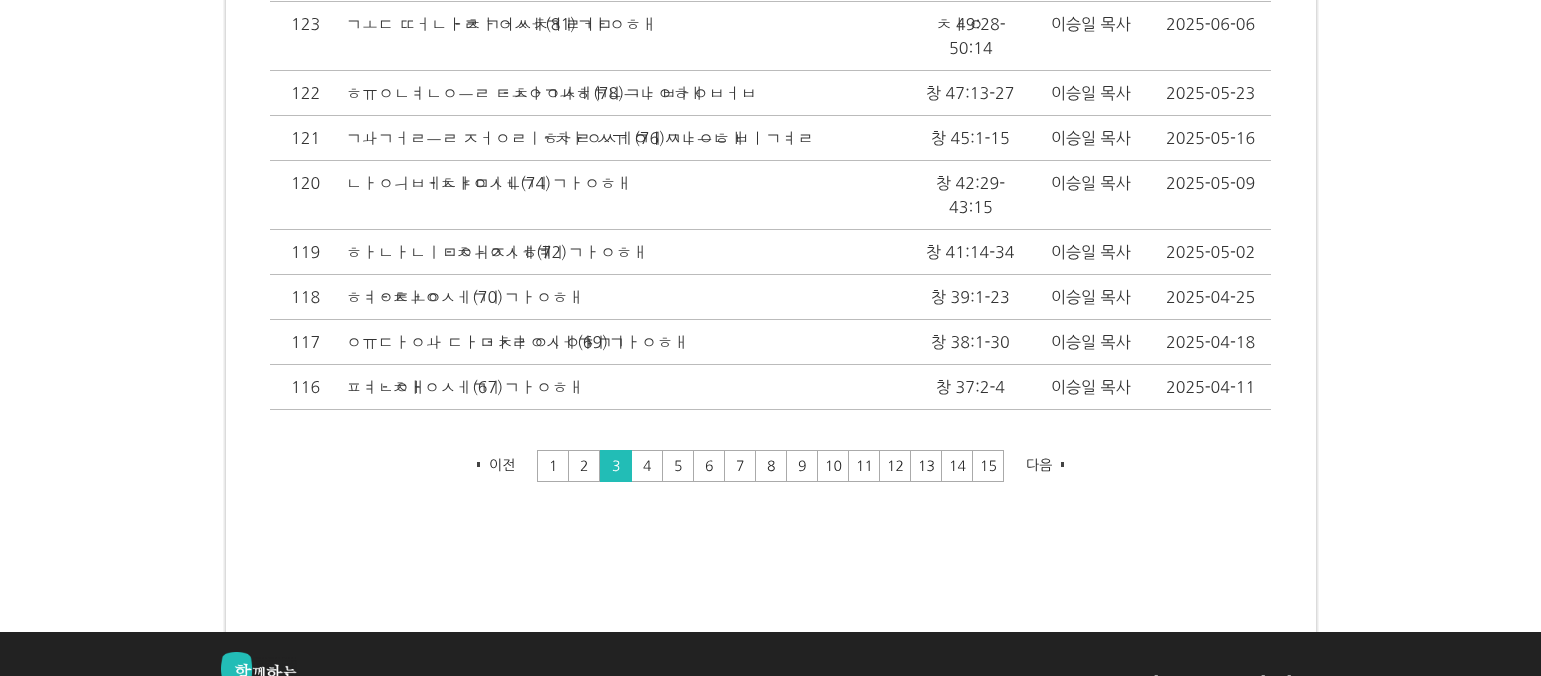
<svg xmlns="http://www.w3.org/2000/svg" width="1541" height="676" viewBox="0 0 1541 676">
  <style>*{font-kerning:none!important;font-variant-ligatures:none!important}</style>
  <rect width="100%" height="100%" fill="rgb(255,255,255)"/>
  <image x="223" y="0" width="1096" height="632" href="pic1.png"/>
  <rect x="270" y="1" width="1001" height="1" fill="rgb(187,187,187)"/>
  <text x="291" y="30" font-family="NanumGothic" font-size="16" fill="rgb(51,51,51)">123</text>
  <text x="346" y="30" font-family="Dotum" font-size="16" fill="rgb(51,51,51)">곧 떠날 것처럼</text>
  <text x="455" y="30" font-family="NanumGothic" font-size="16" fill="rgb(51,51,51)">-</text>
  <text x="465" y="30" font-family="Dotum" font-size="16" fill="rgb(51,51,51)">창세기강해</text>
  <text x="545" y="30" font-family="NanumGothic" font-size="16" fill="rgb(51,51,51)">(81)</text>
  <text x="936" y="30" font-family="Dotum" font-size="16" fill="rgb(51,51,51)">창</text>
  <g font-family="NanumGothic" font-size="16" fill="rgb(51,51,51)">
    <text x="956" y="30">49:28-</text>
    <text x="949" y="54">50:14</text>
    <text x="1051" y="30">이승일 목사</text>
  </g>
  <rect x="270" y="70" width="1001" height="1" fill="rgb(187,187,187)"/>
  <g font-family="NanumGothic" font-size="16" fill="rgb(51,51,51)">
    <text x="1166" y="30">2025-06-06</text>
    <text x="291" y="99">122</text>
  </g>
  <text x="346" y="99" font-family="Dotum" font-size="16" fill="rgb(51,51,51)">흉년을 통과하는 방법</text>
  <text x="503" y="99" font-family="NanumGothic" font-size="16" fill="rgb(51,51,51)">-</text>
  <text x="513" y="99" font-family="Dotum" font-size="16" fill="rgb(51,51,51)">창세기강해</text>
  <g font-family="NanumGothic" font-size="16" fill="rgb(51,51,51)">
    <text x="593" y="99">(78)</text>
    <text x="926" y="99">창 47:13-27</text>
    <text x="1051" y="99">이승일 목사</text>
  </g>
  <rect x="270" y="115" width="1001" height="1" fill="rgb(187,187,187)"/>
  <g font-family="NanumGothic" font-size="16" fill="rgb(51,51,51)">
    <text x="1166" y="99">2025-05-23</text>
    <text x="291" y="144">121</text>
  </g>
  <text x="346" y="144" word-spacing="-0.5" font-family="Dotum" font-size="16" fill="rgb(51,51,51)">과거를 정리할 수 있는 비결</text>
  <text x="544" y="144" font-family="NanumGothic" font-size="16" fill="rgb(51,51,51)">-</text>
  <text x="554" y="144" font-family="Dotum" font-size="16" fill="rgb(51,51,51)">창세기강해</text>
  <g font-family="NanumGothic" font-size="16" fill="rgb(51,51,51)">
    <text x="634" y="144">(76)</text>
    <text x="931" y="144">창 45:1-15</text>
    <text x="1051" y="144">이승일 목사</text>
  </g>
  <rect x="270" y="160" width="1001" height="1" fill="rgb(187,187,187)"/>
  <g font-family="NanumGothic" font-size="16" fill="rgb(51,51,51)">
    <text x="1166" y="144">2025-05-16</text>
    <text x="291" y="189">120</text>
  </g>
  <text x="346" y="189" font-family="Dotum" font-size="16" fill="rgb(51,51,51)">나의베냐민</text>
  <text x="430" y="189" font-family="NanumGothic" font-size="16" fill="rgb(51,51,51)">-</text>
  <text x="440" y="189" font-family="Dotum" font-size="16" fill="rgb(51,51,51)">창세기강해</text>
  <g font-family="NanumGothic" font-size="16" fill="rgb(51,51,51)">
    <text x="520" y="189">(74)</text>
    <text x="936" y="189">창 42:29-</text>
    <text x="949" y="213">43:15</text>
    <text x="1051" y="189">이승일 목사</text>
  </g>
  <rect x="270" y="229" width="1001" height="1" fill="rgb(187,187,187)"/>
  <g font-family="NanumGothic" font-size="16" fill="rgb(51,51,51)">
    <text x="1166" y="189">2025-05-09</text>
    <text x="291" y="258">119</text>
  </g>
  <text x="346" y="258" font-family="Dotum" font-size="16" fill="rgb(51,51,51)">하나님의지혜</text>
  <text x="446" y="258" font-family="NanumGothic" font-size="16" fill="rgb(51,51,51)">-</text>
  <text x="456" y="258" font-family="Dotum" font-size="16" fill="rgb(51,51,51)">창세기강해</text>
  <g font-family="NanumGothic" font-size="16" fill="rgb(51,51,51)">
    <text x="536" y="258">(72)</text>
    <text x="926" y="258">창 41:14-34</text>
    <text x="1051" y="258">이승일 목사</text>
  </g>
  <rect x="270" y="274" width="1001" height="1" fill="rgb(187,187,187)"/>
  <g font-family="NanumGothic" font-size="16" fill="rgb(51,51,51)">
    <text x="1166" y="258">2025-05-02</text>
    <text x="291" y="303">118</text>
  </g>
  <text x="346" y="303" font-family="Dotum" font-size="16" fill="rgb(51,51,51)">형통</text>
  <text x="382" y="303" font-family="NanumGothic" font-size="16" fill="rgb(51,51,51)">-</text>
  <text x="392" y="303" font-family="Dotum" font-size="16" fill="rgb(51,51,51)">창세기강해</text>
  <g font-family="NanumGothic" font-size="16" fill="rgb(51,51,51)">
    <text x="472" y="303">(70)</text>
    <text x="931" y="303">창 39:1-23</text>
    <text x="1051" y="303">이승일 목사</text>
  </g>
  <rect x="270" y="319" width="1001" height="1" fill="rgb(187,187,187)"/>
  <g font-family="NanumGothic" font-size="16" fill="rgb(51,51,51)">
    <text x="1166" y="303">2025-04-25</text>
    <text x="291" y="348">117</text>
  </g>
  <text x="346" y="348" font-family="Dotum" font-size="16" fill="rgb(51,51,51)">유다와 다말 이야기</text>
  <text x="487" y="348" font-family="NanumGothic" font-size="16" fill="rgb(51,51,51)">-</text>
  <text x="497" y="348" font-family="Dotum" font-size="16" fill="rgb(51,51,51)">창세기강해</text>
  <g font-family="NanumGothic" font-size="16" fill="rgb(51,51,51)">
    <text x="577" y="348">(69)</text>
    <text x="931" y="348">창 38:1-30</text>
    <text x="1051" y="348">이승일 목사</text>
  </g>
  <rect x="270" y="364" width="1001" height="1" fill="rgb(187,187,187)"/>
  <g font-family="NanumGothic" font-size="16" fill="rgb(51,51,51)">
    <text x="1166" y="348">2025-04-18</text>
    <text x="291" y="393">116</text>
  </g>
  <text x="346" y="393" font-family="Dotum" font-size="16" fill="rgb(51,51,51)">편애</text>
  <text x="382" y="393" font-family="NanumGothic" font-size="16" fill="rgb(51,51,51)">-</text>
  <text x="392" y="393" font-family="Dotum" font-size="16" fill="rgb(51,51,51)">창세기강해</text>
  <g font-family="NanumGothic" font-size="16" fill="rgb(51,51,51)">
    <text x="472" y="393">(67)</text>
    <text x="936" y="393">창 37:2-4</text>
    <text x="1051" y="393">이승일 목사</text>
  </g>
  <rect x="270" y="409" width="1001" height="1" fill="rgb(187,187,187)"/>
  <text x="1166" y="393" font-family="NanumGothic" font-size="16" fill="rgb(51,51,51)">2025-04-11</text>
  <rect x="477" y="462" width="3" height="5" fill="rgb(67,67,67)"/>
  <text x="489" y="470" font-family="NanumGothic" font-size="14" fill="rgb(34,34,34)">이전</text>
  <rect x="537.5" y="450.5" width="31" height="31" fill="none" stroke="rgb(170,170,170)"/>
  <text x="549" y="471" font-family="NanumGothic" font-size="14" fill="rgb(34,34,34)">1</text>
  <rect x="569" y="450" width="31" height="1" fill="rgb(170,170,170)"/>
  <rect x="599" y="450" width="1" height="32" fill="rgb(170,170,170)"/>
  <rect x="569" y="481" width="31" height="1" fill="rgb(170,170,170)"/>
  <text x="580" y="471" font-family="NanumGothic" font-size="14" fill="rgb(34,34,34)">2</text>
  <rect x="600" y="450" width="32" height="32" fill="rgb(34,189,182)"/>
  <text x="612" y="471" font-family="NanumGothic" font-size="14" fill="rgb(255,255,255)">3</text>
  <rect x="632" y="450" width="372" height="1" fill="rgb(170,170,170)"/>
  <rect x="662" y="450" width="1" height="32" fill="rgb(170,170,170)"/>
  <rect x="632" y="481" width="31" height="1" fill="rgb(170,170,170)"/>
  <text x="643" y="471" font-family="NanumGothic" font-size="14" fill="rgb(34,34,34)">4</text>
  <rect x="693" y="450" width="1" height="32" fill="rgb(170,170,170)"/>
  <rect x="663" y="481" width="31" height="1" fill="rgb(170,170,170)"/>
  <text x="674" y="471" font-family="NanumGothic" font-size="14" fill="rgb(34,34,34)">5</text>
  <rect x="724" y="450" width="1" height="32" fill="rgb(170,170,170)"/>
  <rect x="694" y="481" width="31" height="1" fill="rgb(170,170,170)"/>
  <text x="705" y="471" font-family="NanumGothic" font-size="14" fill="rgb(34,34,34)">6</text>
  <rect x="755" y="450" width="1" height="32" fill="rgb(170,170,170)"/>
  <rect x="725" y="481" width="31" height="1" fill="rgb(170,170,170)"/>
  <text x="736" y="471" font-family="NanumGothic" font-size="14" fill="rgb(34,34,34)">7</text>
  <rect x="786" y="450" width="1" height="32" fill="rgb(170,170,170)"/>
  <rect x="756" y="481" width="31" height="1" fill="rgb(170,170,170)"/>
  <text x="767" y="471" font-family="NanumGothic" font-size="14" fill="rgb(34,34,34)">8</text>
  <rect x="817" y="450" width="1" height="32" fill="rgb(170,170,170)"/>
  <rect x="787" y="481" width="31" height="1" fill="rgb(170,170,170)"/>
  <text x="798" y="471" font-family="NanumGothic" font-size="14" fill="rgb(34,34,34)">9</text>
  <rect x="848" y="450" width="1" height="32" fill="rgb(170,170,170)"/>
  <rect x="818" y="481" width="31" height="1" fill="rgb(170,170,170)"/>
  <text x="825" y="471" font-family="NanumGothic" font-size="14" fill="rgb(34,34,34)">10</text>
  <rect x="879" y="450" width="1" height="32" fill="rgb(170,170,170)"/>
  <rect x="849" y="481" width="31" height="1" fill="rgb(170,170,170)"/>
  <text x="856" y="471" font-family="NanumGothic" font-size="14" fill="rgb(34,34,34)">11</text>
  <rect x="910" y="450" width="1" height="32" fill="rgb(170,170,170)"/>
  <rect x="880" y="481" width="31" height="1" fill="rgb(170,170,170)"/>
  <text x="887" y="471" font-family="NanumGothic" font-size="14" fill="rgb(34,34,34)">12</text>
  <rect x="941" y="450" width="1" height="32" fill="rgb(170,170,170)"/>
  <rect x="911" y="481" width="31" height="1" fill="rgb(170,170,170)"/>
  <text x="918" y="471" font-family="NanumGothic" font-size="14" fill="rgb(34,34,34)">13</text>
  <rect x="972" y="450" width="1" height="32" fill="rgb(170,170,170)"/>
  <rect x="942" y="481" width="31" height="1" fill="rgb(170,170,170)"/>
  <text x="949" y="471" font-family="NanumGothic" font-size="14" fill="rgb(34,34,34)">14</text>
  <rect x="1003" y="450" width="1" height="32" fill="rgb(170,170,170)"/>
  <rect x="973" y="481" width="31" height="1" fill="rgb(170,170,170)"/>
  <text x="980" y="471" font-family="NanumGothic" font-size="14" fill="rgb(34,34,34)">15</text>
  <rect x="1061" y="462" width="3" height="5" fill="rgb(67,67,67)"/>
  <text x="1026" y="470" font-family="NanumGothic" font-size="14" fill="rgb(34,34,34)">다음</text>
  <rect x="0" y="632" width="1541" height="44" fill="rgb(34,34,34)"/>
  <image x="221" y="652" width="76" height="24" href="pic2.png"/>
  <g font-family="NanumGothic" font-size="12" fill="rgb(204,204,204)">
    <text x="1154" y="680">-</text>
    <text x="1261" y="680">-</text>
    <text x="1287" y="680">-</text>
  </g>
</svg>
